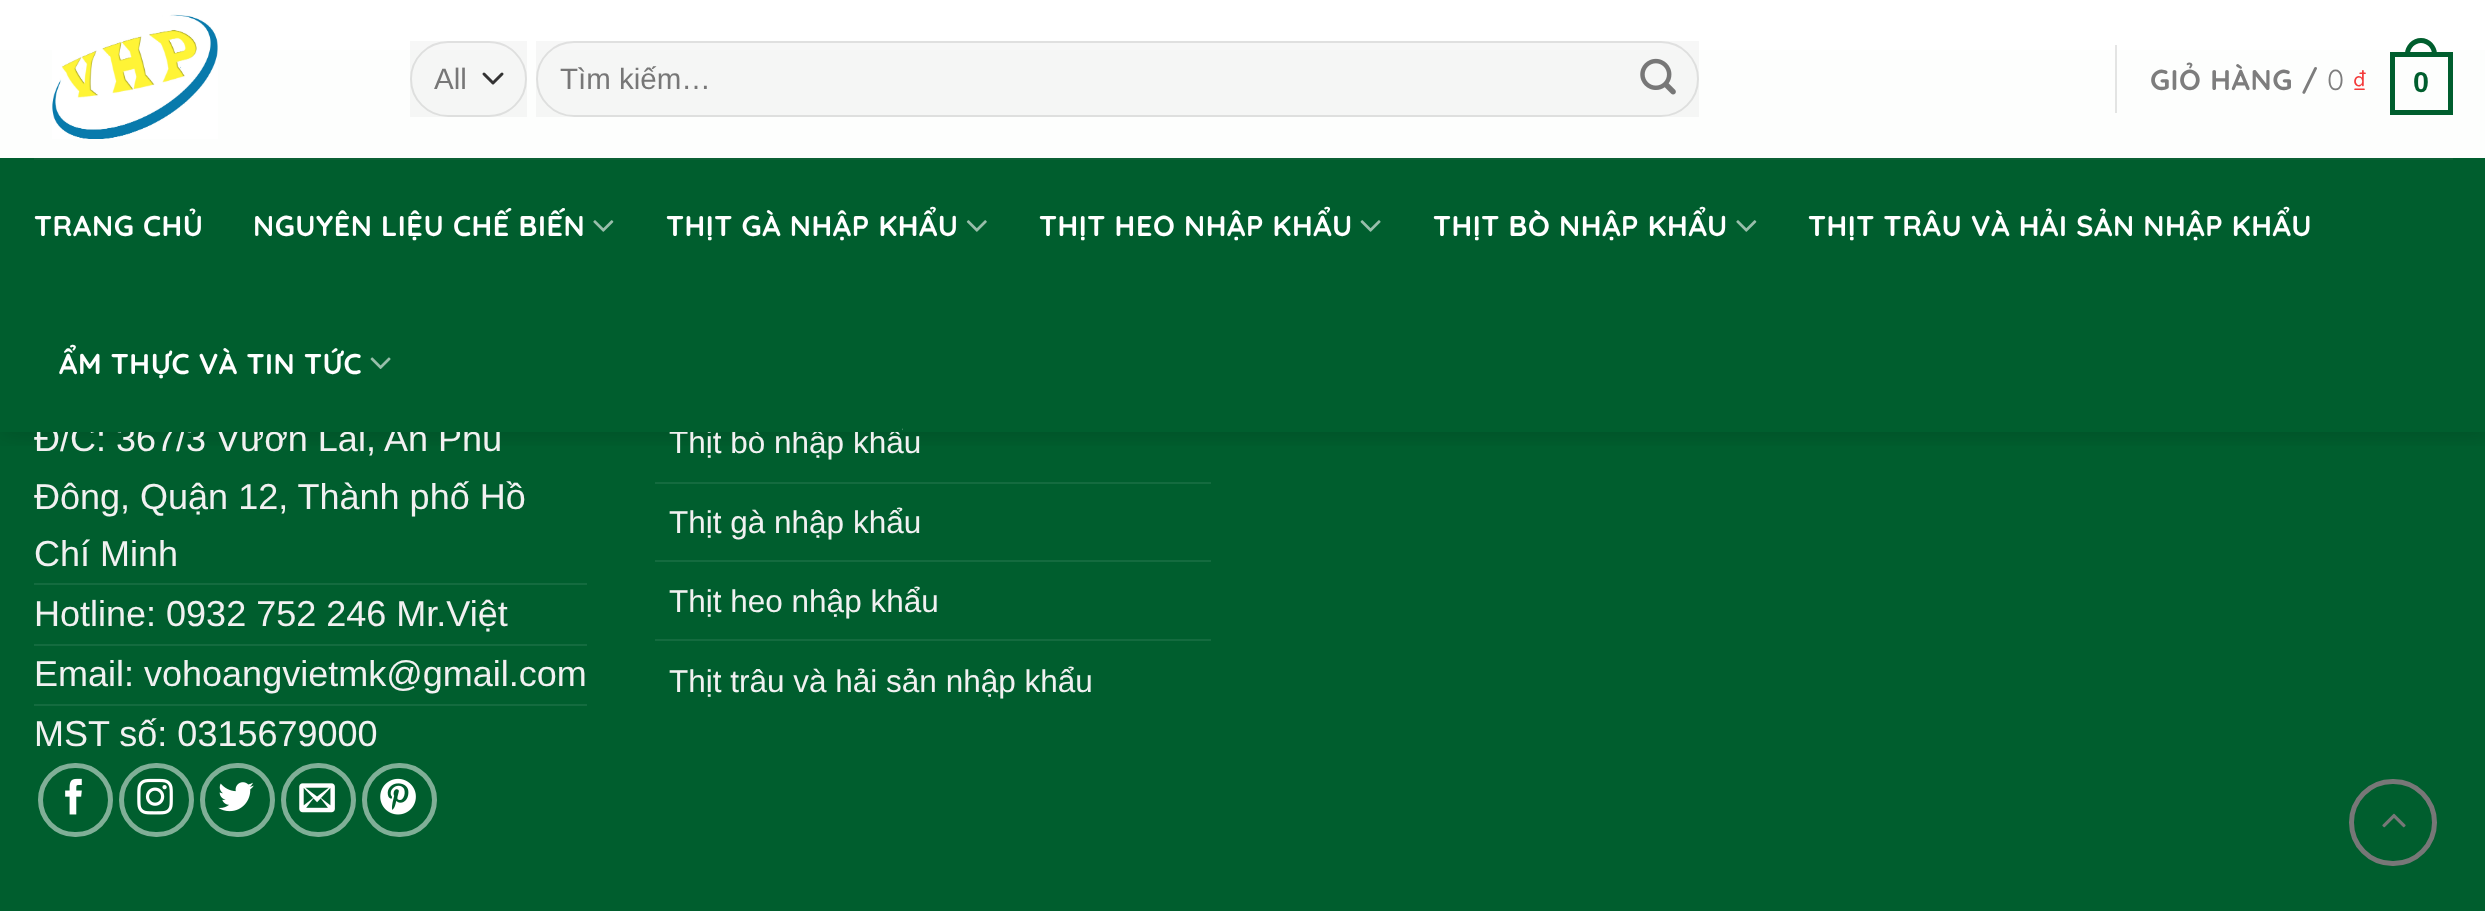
<svg xmlns="http://www.w3.org/2000/svg" width="2485" height="911" viewBox="0 0 2485 911">
  <defs>
    <clipPath id="clip1"><rect x="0" y="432" width="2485" height="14"/></clipPath>
  </defs>
  <rect width="100%" height="100%" fill="rgb(255,255,255)"/>
  <rect x="0" y="52" width="2485" height="859" fill="rgb(0,94,46)"/>
  <rect x="0" y="50" width="2485" height="2" fill="rgb(0,89,44)"/>
  <g clip-path="url(#clip1)">
    <rect x="2" y="2" width="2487" height="432" fill="rgba(0,0,0,0.15)" filter="blur(11px)"/>
  </g>
  <rect x="0" y="50" width="2485" height="108" fill="rgba(255,255,255,0.9)"/>
  <rect x="0" y="50" width="2485" height="108" fill="rgba(255,255,255,0.9)"/>
  <image x="52" y="14" width="166" height="125" href="pic1.png"/>
  <rect x="410" y="41" width="117" height="76" fill="rgba(0,0,0,0.03)"/>
  <path d="M484 74L493 83L502 74" fill="none" stroke="rgb(51,51,51)" stroke-width="3" stroke-linecap="round" stroke-linejoin="round"/>
  <rect x="411" y="42" width="115" height="74" rx="37" fill="none" stroke="rgba(0,0,0,0.09)" stroke-width="2"/>
  <text x="434" y="89" font-family="Liberation Sans" font-size="29.5" fill="rgb(119,119,119)">All</text>
  <rect x="536" y="41" width="1163" height="76" fill="rgba(0,0,0,0.03)"/>
  <rect x="537" y="42" width="1161" height="74" rx="37" fill="none" stroke="rgba(0,0,0,0.09)" stroke-width="2"/>
  <text x="560" y="89" font-family="Liberation Sans" font-size="29.5" fill="rgb(119,119,119)">Tìm kiếm…</text>
  <image x="1640" y="58" width="36" height="37" href="pic2.png"/>
  <rect x="2115" y="45" width="2" height="68" fill="rgba(0,0,0,0.1)"/>
  <text x="2150" y="90" font-family="Quicksand" font-size="28.75" font-weight="bold" letter-spacing="0.6" fill="rgb(125,125,125)">GIỎ HÀNG /</text>
  <text x="2327" y="90" font-family="Quicksand" font-size="28.75" letter-spacing="0.6" fill="rgb(125,125,125)">0</text>
  <text x="2353" y="90" font-family="Quicksand" font-size="28.75" letter-spacing="0.6" fill="rgb(244,58,58)">₫</text>
  <rect x="2392.5" y="54.5" width="58" height="58" fill="none" stroke="rgb(0,94,46)" stroke-width="5"/>
  <path d="M2421 38C2429.5 38 2437 45.5 2437 54V56H2405V54C2405 45.5 2412.5 38 2421 38ZM2421 43C2427 43 2432 48 2432 54V56H2410V54C2410 48 2415 43 2421 43Z" fill="rgb(0,94,46)" fill-rule="evenodd"/>
  <text x="2413" y="92" font-family="Liberation Sans" font-size="28.75" font-weight="bold" letter-spacing="0.6" fill="rgb(0,94,46)">0</text>
  <rect x="34" y="158" width="2419" height="2" fill="rgb(12,97,53)"/>
  <text x="34" y="451" font-family="Liberation Sans" font-size="36" fill="rgb(241,241,241)">Đ/C: 367/3 Vườn Lài, An Phú</text>
  <text x="669" y="453" font-family="Liberation Sans" font-size="31.5" fill="rgb(241,241,241)">Thịt bò nhập khẩu</text>
  <rect x="36" y="424" width="866" height="8" fill="rgb(0,94,46)"/>
  <g font-family="Quicksand" font-size="28.75" font-weight="bold" letter-spacing="0.6" fill="rgb(255,255,255)">
    <text x="34" y="236">TRANG CHỦ</text>
    <text x="253" y="236">NGUYÊN LIỆU CHẾ BIẾN</text>
  </g>
  <image x="593" y="220" width="21" height="12" href="pic3.png"/>
  <text x="666" y="236" font-family="Quicksand" font-size="28.75" font-weight="bold" letter-spacing="0.6" fill="rgb(255,255,255)">THỊT GÀ NHẬP KHẨU</text>
  <image x="966" y="220" width="21" height="12" href="pic4.png"/>
  <text x="1039" y="236" font-family="Quicksand" font-size="28.75" font-weight="bold" letter-spacing="0.6" fill="rgb(255,255,255)">THỊT HEO NHẬP KHẨU</text>
  <image x="1360" y="220" width="21" height="12" href="pic5.png"/>
  <text x="1433" y="236" font-family="Quicksand" font-size="28.75" font-weight="bold" letter-spacing="0.6" fill="rgb(255,255,255)">THỊT BÒ NHẬP KHẨU</text>
  <image x="1736" y="220" width="21" height="12" href="pic3.png"/>
  <g font-family="Quicksand" font-size="28.75" font-weight="bold" letter-spacing="0.6" fill="rgb(255,255,255)">
    <text x="1808" y="236">THỊT TRÂU VÀ HẢI SẢN NHẬP KHẨU</text>
    <text x="59" y="374">ẨM THỰC VÀ TIN TỨC</text>
  </g>
  <image x="370" y="357" width="21" height="12" href="pic6.png"/>
  <g font-family="Liberation Sans" font-size="36" fill="rgb(241,241,241)">
    <text>
      <tspan x="34" y="509">Đông, Quận 12, Thành phố Hồ</tspan>
      <tspan x="34" y="566">Chí Minh</tspan>
    </text>
  </g>
  <rect x="34" y="583" width="553" height="2" fill="rgb(20,107,63)"/>
  <text x="34" y="626" font-family="Liberation Sans" font-size="36" fill="rgb(241,241,241)">Hotline: 0932 752 246 Mr.Việt</text>
  <rect x="34" y="644" width="553" height="2" fill="rgb(20,107,63)"/>
  <text x="34" y="686" font-family="Liberation Sans" font-size="36" fill="rgb(241,241,241)">Email: vohoangvietmk@gmail.com</text>
  <rect x="34" y="704" width="553" height="2" fill="rgb(20,107,63)"/>
  <text x="34" y="746" font-family="Liberation Sans" font-size="36" fill="rgb(241,241,241)">MST số: 0315679000</text>
  <rect x="40.5" y="765.5" width="70" height="69" rx="34.5" fill="none" stroke="rgb(128,175,151)" stroke-width="5"/>
  <image x="65" y="778" width="17" height="37" href="pic7.png"/>
  <rect x="121.5" y="765.5" width="70" height="69" rx="34.5" fill="none" stroke="rgb(128,175,151)" stroke-width="5"/>
  <image x="137" y="778" width="36" height="37" href="pic8.png"/>
  <rect x="202.5" y="765.5" width="70" height="69" rx="34.5" fill="none" stroke="rgb(128,175,151)" stroke-width="5"/>
  <image x="218" y="782" width="36" height="30" href="pic9.png"/>
  <rect x="283.5" y="765.5" width="70" height="69" rx="34.5" fill="none" stroke="rgb(128,175,151)" stroke-width="5"/>
  <image x="299" y="783" width="36" height="30" href="pic10.png"/>
  <rect x="364.5" y="765.5" width="70" height="69" rx="34.5" fill="none" stroke="rgb(128,175,151)" stroke-width="5"/>
  <image x="380" y="778" width="36" height="37" href="pic11.png"/>
  <rect x="655" y="482" width="556" height="2" fill="rgb(20,107,63)"/>
  <text x="669" y="533" font-family="Liberation Sans" font-size="31.5" fill="rgb(241,241,241)">Thịt gà nhập khẩu</text>
  <rect x="655" y="560" width="556" height="2" fill="rgb(20,107,63)"/>
  <text x="669" y="612" font-family="Liberation Sans" font-size="31.5" fill="rgb(241,241,241)">Thịt heo nhập khẩu</text>
  <rect x="655" y="639" width="556" height="2" fill="rgb(20,107,63)"/>
  <text x="669" y="692" font-family="Liberation Sans" font-size="31.5" fill="rgb(241,241,241)">Thịt trâu và hải sản nhập khẩu</text>
  <rect x="2351.5" y="781.5" width="83" height="82" rx="41" fill="none" stroke="rgb(119,119,119)" stroke-width="5"/>
  <image x="2382" y="813" width="24" height="15" href="pic12.png"/>
</svg>
